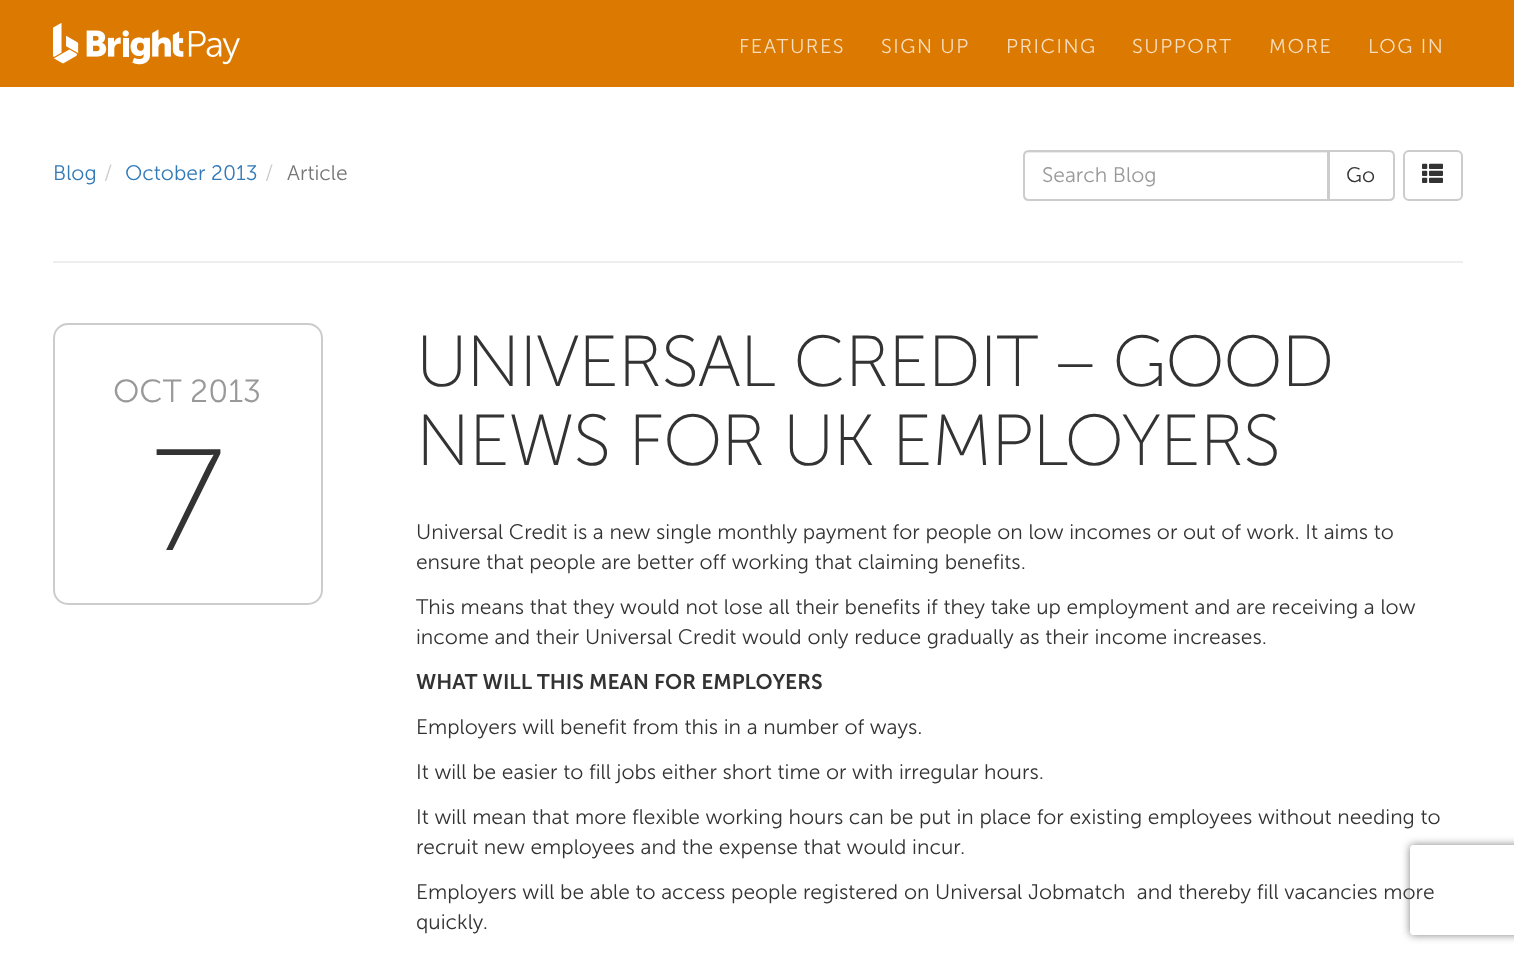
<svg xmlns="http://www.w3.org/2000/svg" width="1514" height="955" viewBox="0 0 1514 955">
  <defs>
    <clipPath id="clip1"><path d="M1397 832H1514V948H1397ZM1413 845H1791C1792.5 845 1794 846.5 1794 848V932C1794 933.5 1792.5 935 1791 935H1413C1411.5 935 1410 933.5 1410 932V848C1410 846.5 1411.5 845 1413 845Z" clip-rule="evenodd"/></clipPath>
  </defs>
  <rect width="100%" height="100%" fill="rgb(255,255,255)"/>
  <rect x="0" y="0" width="1514" height="87" fill="rgb(220,121,0)"/>
  <image x="53" y="23" width="187" height="42" href="pic1.png"/>
  <g font-family="'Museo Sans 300'" font-size="20" font-weight="300" letter-spacing="1.5" fill="rgb(246,222,191)">
    <text x="739" y="53">FEATURES</text>
    <text x="881" y="53">SIGN UP</text>
    <text x="1006" y="53">PRICING</text>
    <text x="1132" y="53">SUPPORT</text>
    <text x="1269" y="53">MORE</text>
    <text x="1368" y="53">LOG IN</text>
  </g>
  <text x="53" y="180" font-family="'Museo Sans 300'" font-size="21" font-weight="300" fill="rgb(51,122,183)">Blog</text>
  <text x="104" y="180" font-family="'Museo Sans 300'" font-size="21" font-weight="300" fill="rgb(204,204,204)">/</text>
  <text x="125" y="180" font-family="'Museo Sans 300'" font-size="21" font-weight="300" fill="rgb(51,122,183)">October 2013</text>
  <text x="265" y="180" font-family="'Museo Sans 300'" font-size="21" font-weight="300" fill="rgb(204,204,204)">/</text>
  <text x="287" y="180" font-family="'Museo Sans 300'" font-size="21" font-weight="300" fill="rgb(119,119,119)">Article</text>
  <path d="M1029 153H1328V152H1029L1027 153L1026 154Z" fill="rgb(236,236,236)"/>
  <path d="M1029 151H1328V200H1029C1026 200 1024 198 1024 195V156C1024 153 1026 151 1029 151Z" fill="none" stroke="rgb(204,204,204)" stroke-width="2"/>
  <text x="1042" y="182" font-family="'Museo Sans 300'" font-size="21" font-weight="300" fill="rgb(153,153,153)">Search Blog</text>
  <path d="M1329 151H1389C1392 151 1394 153 1394 156V195C1394 198 1392 200 1389 200H1329Z" fill="rgb(255,255,255)" stroke="rgb(204,204,204)" stroke-width="2"/>
  <text x="1346" y="182" font-family="'Museo Sans 300'" font-size="21" font-weight="300" fill="rgb(51,51,51)">Go</text>
  <rect x="1404" y="151" width="58" height="49" rx="5" fill="none" stroke="rgb(204,204,204)" stroke-width="2"/>
  <image x="1422" y="163" width="21" height="20" href="pic2.png"/>
  <rect x="53" y="261" width="1410" height="2" fill="rgb(238,238,238)"/>
  <rect x="54" y="324" width="268" height="280" rx="14" fill="none" stroke="rgb(204,204,204)" stroke-width="2"/>
  <text x="113" y="402" font-family="'Museo Sans 300'" font-size="32" font-weight="300" fill="rgb(153,153,153)">OCT 2013</text>
  <text x="151" y="550" font-family="'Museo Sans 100'" font-size="144" font-weight="300" fill="rgb(51,51,51)">7</text>
  <g font-family="'Museo Sans 100'" font-size="72" font-weight="300" letter-spacing="-1.5" fill="rgb(51,51,51)">
    <text>
      <tspan x="416" y="386">UNIVERSAL CREDIT – GOOD</tspan>
      <tspan x="416" y="465">NEWS FOR UK EMPLOYERS</tspan>
    </text>
  </g>
  <g font-family="'Museo Sans 300'" font-size="21" font-weight="300" fill="rgb(51,51,51)">
    <text>
      <tspan x="416" y="539">Universal Credit is a new single monthly payment for people on low incomes or out of work. It aims to</tspan>
      <tspan x="416" y="569">ensure that people are better off working that claiming benefits.</tspan>
    </text>
    <text>
      <tspan x="416" y="614">This means that they would not lose all their benefits if they take up employment and are receiving a low</tspan>
      <tspan x="416" y="644">income and their Universal Credit would only reduce gradually as their income increases.</tspan>
    </text>
  </g>
  <text x="416" y="689" font-family="'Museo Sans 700'" font-size="21" font-weight="600" fill="rgb(51,51,51)">WHAT WILL THIS MEAN FOR EMPLOYERS</text>
  <g font-family="'Museo Sans 300'" font-size="21" font-weight="300" fill="rgb(51,51,51)">
    <text x="416" y="734">Employers will benefit from this in a number of ways.</text>
    <text x="416" y="779">It will be easier to fill jobs either short time or with irregular hours.</text>
    <text>
      <tspan x="416" y="824">It will mean that more flexible working hours can be put in place for existing employees without needing to</tspan>
      <tspan x="416" y="854">recruit new employees and the expense that would incur.</tspan>
    </text>
    <text xml:space="preserve"><tspan x="416" y="899">Employers will be able to access people registered on Universal Jobmatch  and thereby fill vacancies more</tspan><tspan x="416" y="929">quickly.</tspan></text>
  </g>
  <g clip-path="url(#clip1)">
    <rect x="1410" y="845" width="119" height="90" rx="3" fill="rgb(128,128,128)" filter="blur(4px)"/>
  </g>
</svg>
